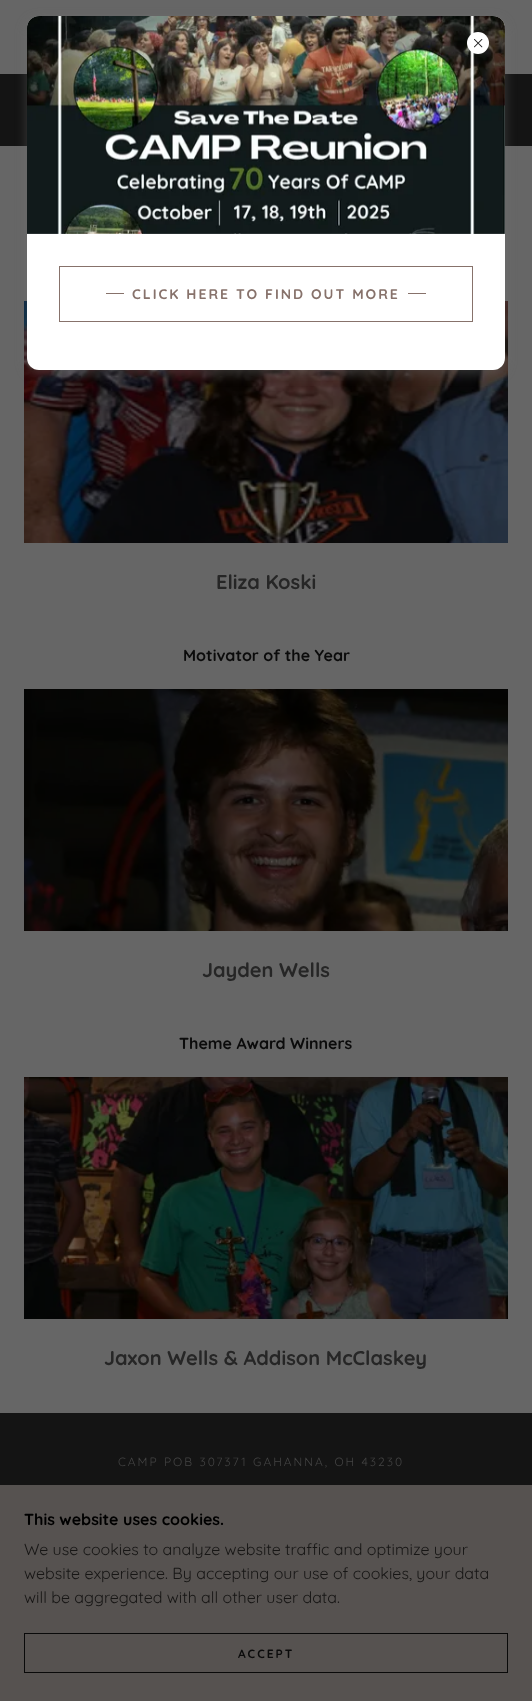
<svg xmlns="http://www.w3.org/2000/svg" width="532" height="1701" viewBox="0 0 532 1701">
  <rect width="100%" height="100%" fill="rgb(20,20,20)"/>
  <rect x="0" y="0" width="532" height="74" fill="rgb(102,102,102)"/>
  <rect x="0" y="146" width="532" height="1267" fill="rgb(102,102,102)"/>
  <image x="24" y="301" width="484" height="242" href="pic3.png"/>
  <rect x="27" y="20" width="478" height="354" rx="12" fill="rgba(117,117,117,0.4)" filter="blur(6px)"/>
  <rect x="27" y="16" width="478" height="354" rx="12" fill="rgb(255,255,255)"/>
  <image x="27" y="16" width="478" height="218" href="pic2.png"/>
  <circle cx="478" cy="43" r="11" fill="rgb(255,255,255)"/>
  <image x="474" y="39" width="9" height="9" href="pic1.png"/>
  <rect x="59.5" y="266.5" width="413" height="55" fill="none" stroke="rgb(135,114,107)"/>
  <rect x="106" y="293" width="18" height="1" fill="rgb(135,114,107)"/>
  <text x="132" y="299" font-family="Quicksand" font-size="14" font-weight="bold" letter-spacing="2" fill="rgb(135,114,107)">CLICK HERE TO FIND OUT MORE</text>
  <rect x="408" y="293" width="18" height="1" fill="rgb(135,114,107)"/>
  <text x="216" y="589" font-family="Quicksand" font-size="20" font-weight="bold" fill="rgb(38,38,38)">Eliza Koski</text>
  <text x="183" y="661" font-family="Quicksand" font-size="16" font-weight="bold" fill="rgb(11,11,11)">Motivator of the Year</text>
  <image x="24" y="689" width="484" height="242" href="pic4.png"/>
  <text x="202" y="977" font-family="Quicksand" font-size="20" font-weight="bold" fill="rgb(38,38,38)">Jayden Wells</text>
  <text x="179" y="1049" font-family="Quicksand" font-size="16" font-weight="bold" fill="rgb(11,11,11)">Theme Award Winners</text>
  <image x="24" y="1077" width="484" height="242" href="pic5.png"/>
  <text x="104" y="1365" font-family="Quicksand" font-size="20" font-weight="bold" fill="rgb(38,38,38)">Jaxon Wells &amp; Addison McClaskey</text>
  <text x="118" y="1466" font-family="Quicksand" font-size="12" letter-spacing="2" fill="rgb(68,68,68)">CAMP POB 307371 GAHANNA, OH 43230</text>
  <rect x="0" y="1485" width="532" height="216" fill="rgb(86,82,80)"/>
  <text x="24" y="1525" font-family="Quicksand" font-size="16" font-weight="bold" fill="rgb(0,0,0)">This website uses cookies.</text>
  <g font-family="Quicksand" font-size="16" fill="rgb(23,22,21)">
    <text>
      <tspan x="24" y="1555">We use cookies to analyze website traffic and optimize your</tspan>
      <tspan x="24" y="1579">website experience. By accepting our use of cookies, your data</tspan>
      <tspan x="24" y="1603">will be aggregated with all other user data.</tspan>
    </text>
  </g>
  <rect x="24.5" y="1633.5" width="483" height="39" fill="none" stroke="rgb(9,9,9)"/>
  <text x="238" y="1658" font-family="Quicksand" font-size="12" font-weight="bold" letter-spacing="2" fill="rgb(11,11,11)">ACCEPT</text>
</svg>
